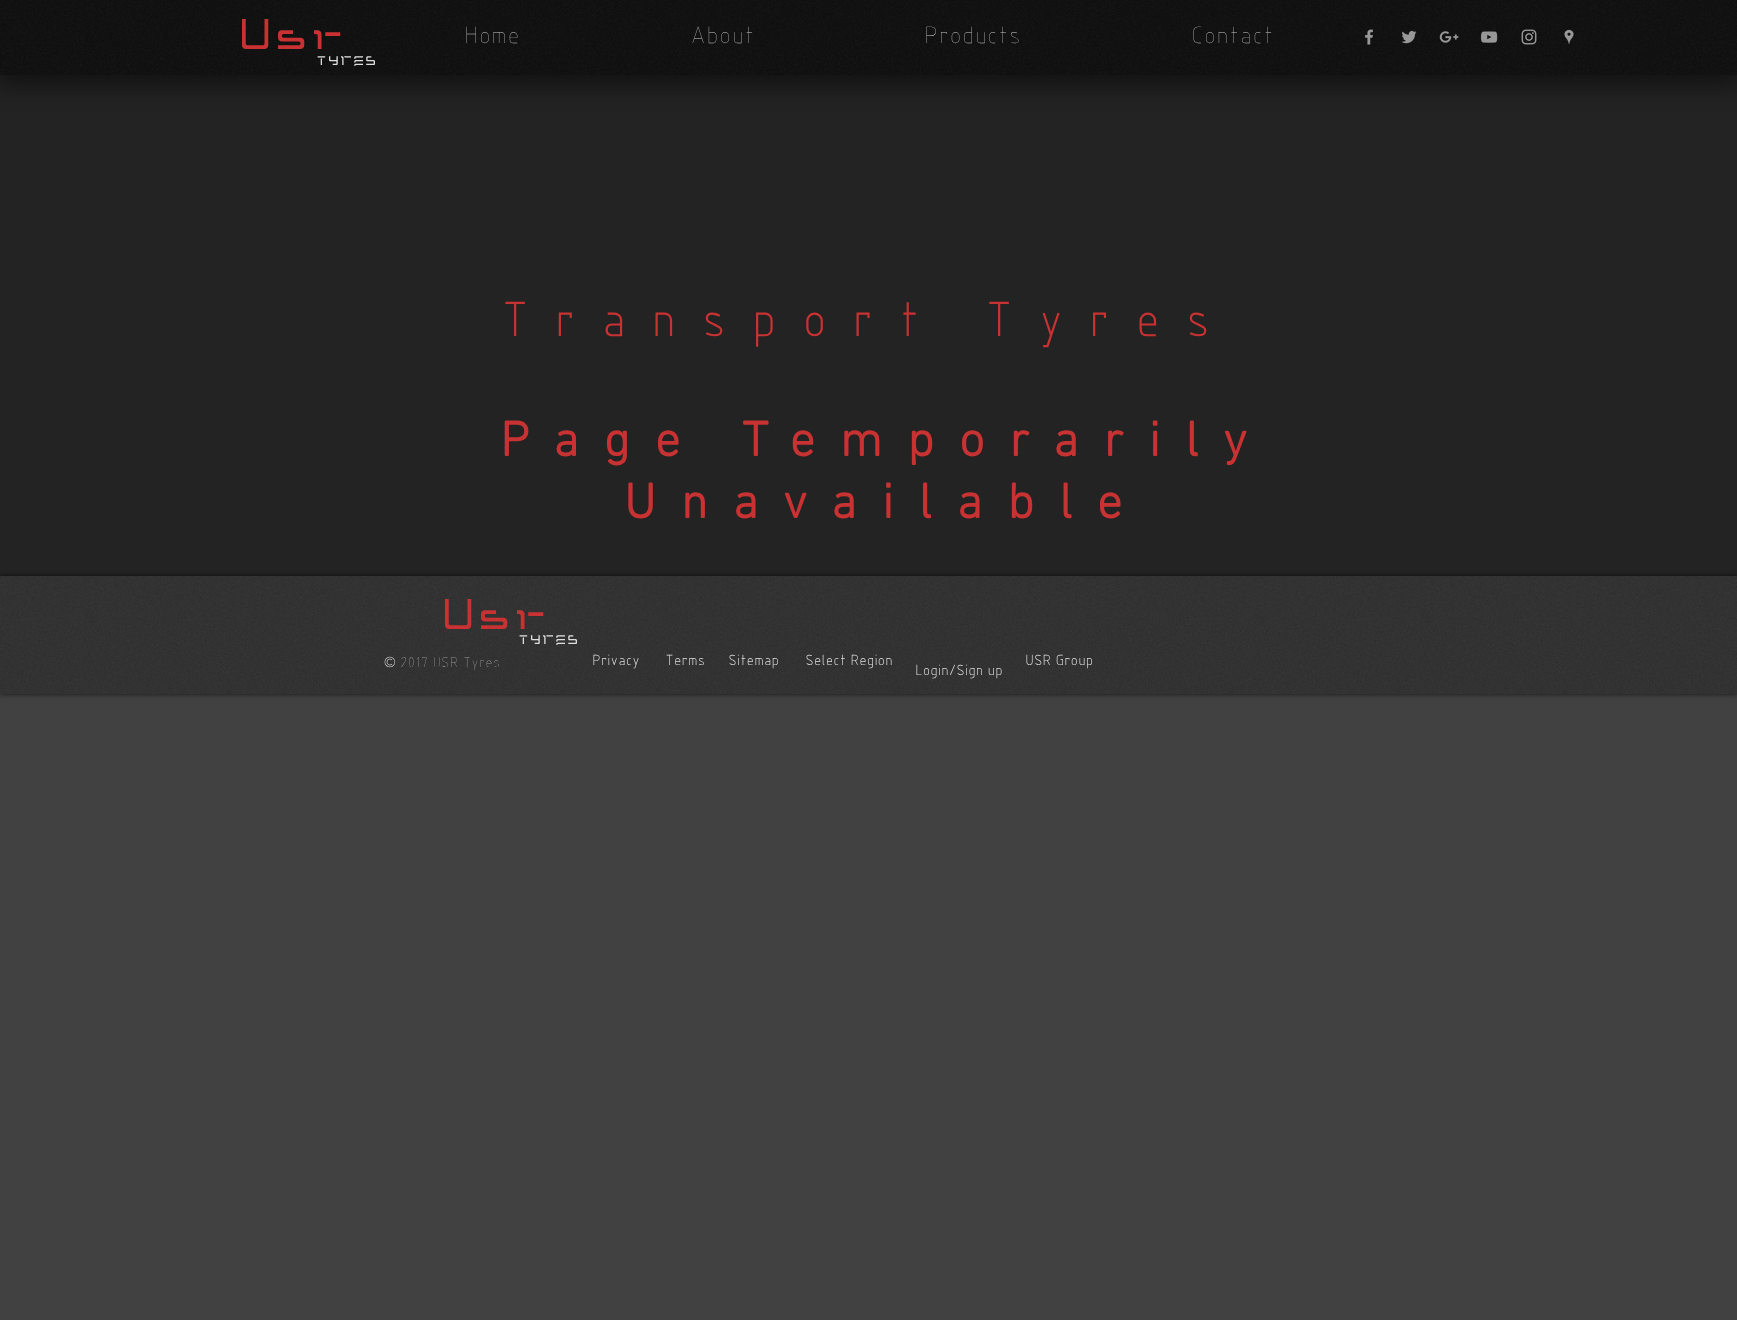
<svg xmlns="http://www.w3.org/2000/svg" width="1737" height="1320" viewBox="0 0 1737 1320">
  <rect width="100%" height="100%" fill="rgb(65,65,65)"/>
  <rect x="0" y="75" width="1737" height="501" fill="rgb(35,35,35)"/>
  <rect x="-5" y="0" width="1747" height="85" fill="rgba(0,0,0,0.5)" filter="blur(12.5px)"/>
  <rect x="0" y="0" width="1737" height="75" fill="rgb(16,16,16)"/>
  <image x="0" y="0" width="1737" height="75" href="pic1.png"/>
  <text x="242" y="49" font-family="'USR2'" font-size="30" letter-spacing="6" fill="rgb(200,50,50)">USR</text>
  <g font-family="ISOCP" font-size="25" fill="rgb(199,199,199)">
    <text x="464" y="43">Home</text>
    <text x="690" y="43">About</text>
    <text x="924" y="43">Products</text>
    <text x="1191" y="43">Contact</text>
  </g>
  <image x="1365" y="29" width="8" height="16" href="pic2.png"/>
  <image x="1401" y="30" width="16" height="14" href="pic3.png"/>
  <image x="1439" y="31" width="20" height="12" href="pic4.png"/>
  <image x="1480" y="31" width="18" height="12" href="pic5.png"/>
  <image x="1521" y="29" width="16" height="16" href="pic6.png"/>
  <image x="1564" y="29" width="10" height="15" href="pic7.png"/>
  <text x="317" y="65" font-family="'USR2'" font-size="10" letter-spacing="2" fill="rgb(222,222,222)">tyres</text>
  <text x="500" y="336" font-family="ISOCP" font-size="50" font-weight="bold" letter-spacing="25" fill="rgb(200,50,50)">Transport Tyres</text>
  <g font-family="'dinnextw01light'" font-size="50" font-weight="bold" letter-spacing="25" fill="rgb(200,50,50)">
    <text x="500" y="456">Page Temporarily</text>
    <text x="624" y="518">Unavailable</text>
  </g>
  <rect x="0" y="576" width="1737" height="118" fill="rgba(0,0,0,0.7)" filter="blur(2.5px)"/>
  <rect x="0" y="576" width="1737" height="118" fill="rgb(50,50,50)"/>
  <image x="0" y="576" width="1737" height="118" href="pic8.png"/>
  <text x="445" y="629" font-family="'USR2'" font-size="30" letter-spacing="6" fill="rgb(200,50,50)">USR</text>
  <text x="519" y="644" font-family="'USR2'" font-size="10" letter-spacing="2" fill="rgb(222,222,222)">tyres</text>
  <text x="384" y="667" font-family="'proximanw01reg'" font-size="15" fill="rgb(222,222,222)">©</text>
  <text x="400" y="667" font-family="ISOCP" font-size="15" fill="rgb(222,222,222)">2017 USR Tyres</text>
  <g font-family="ISOCP" font-size="15" font-weight="bold" fill="rgb(222,222,222)">
    <text x="592" y="665">Privacy</text>
    <text x="665" y="665">Terms</text>
    <text x="728" y="665">Sitemap</text>
    <text x="805" y="665">Select Region</text>
    <text x="915" y="675">Login/Sign up</text>
    <text x="1025" y="665">USR Group</text>
  </g>
</svg>
